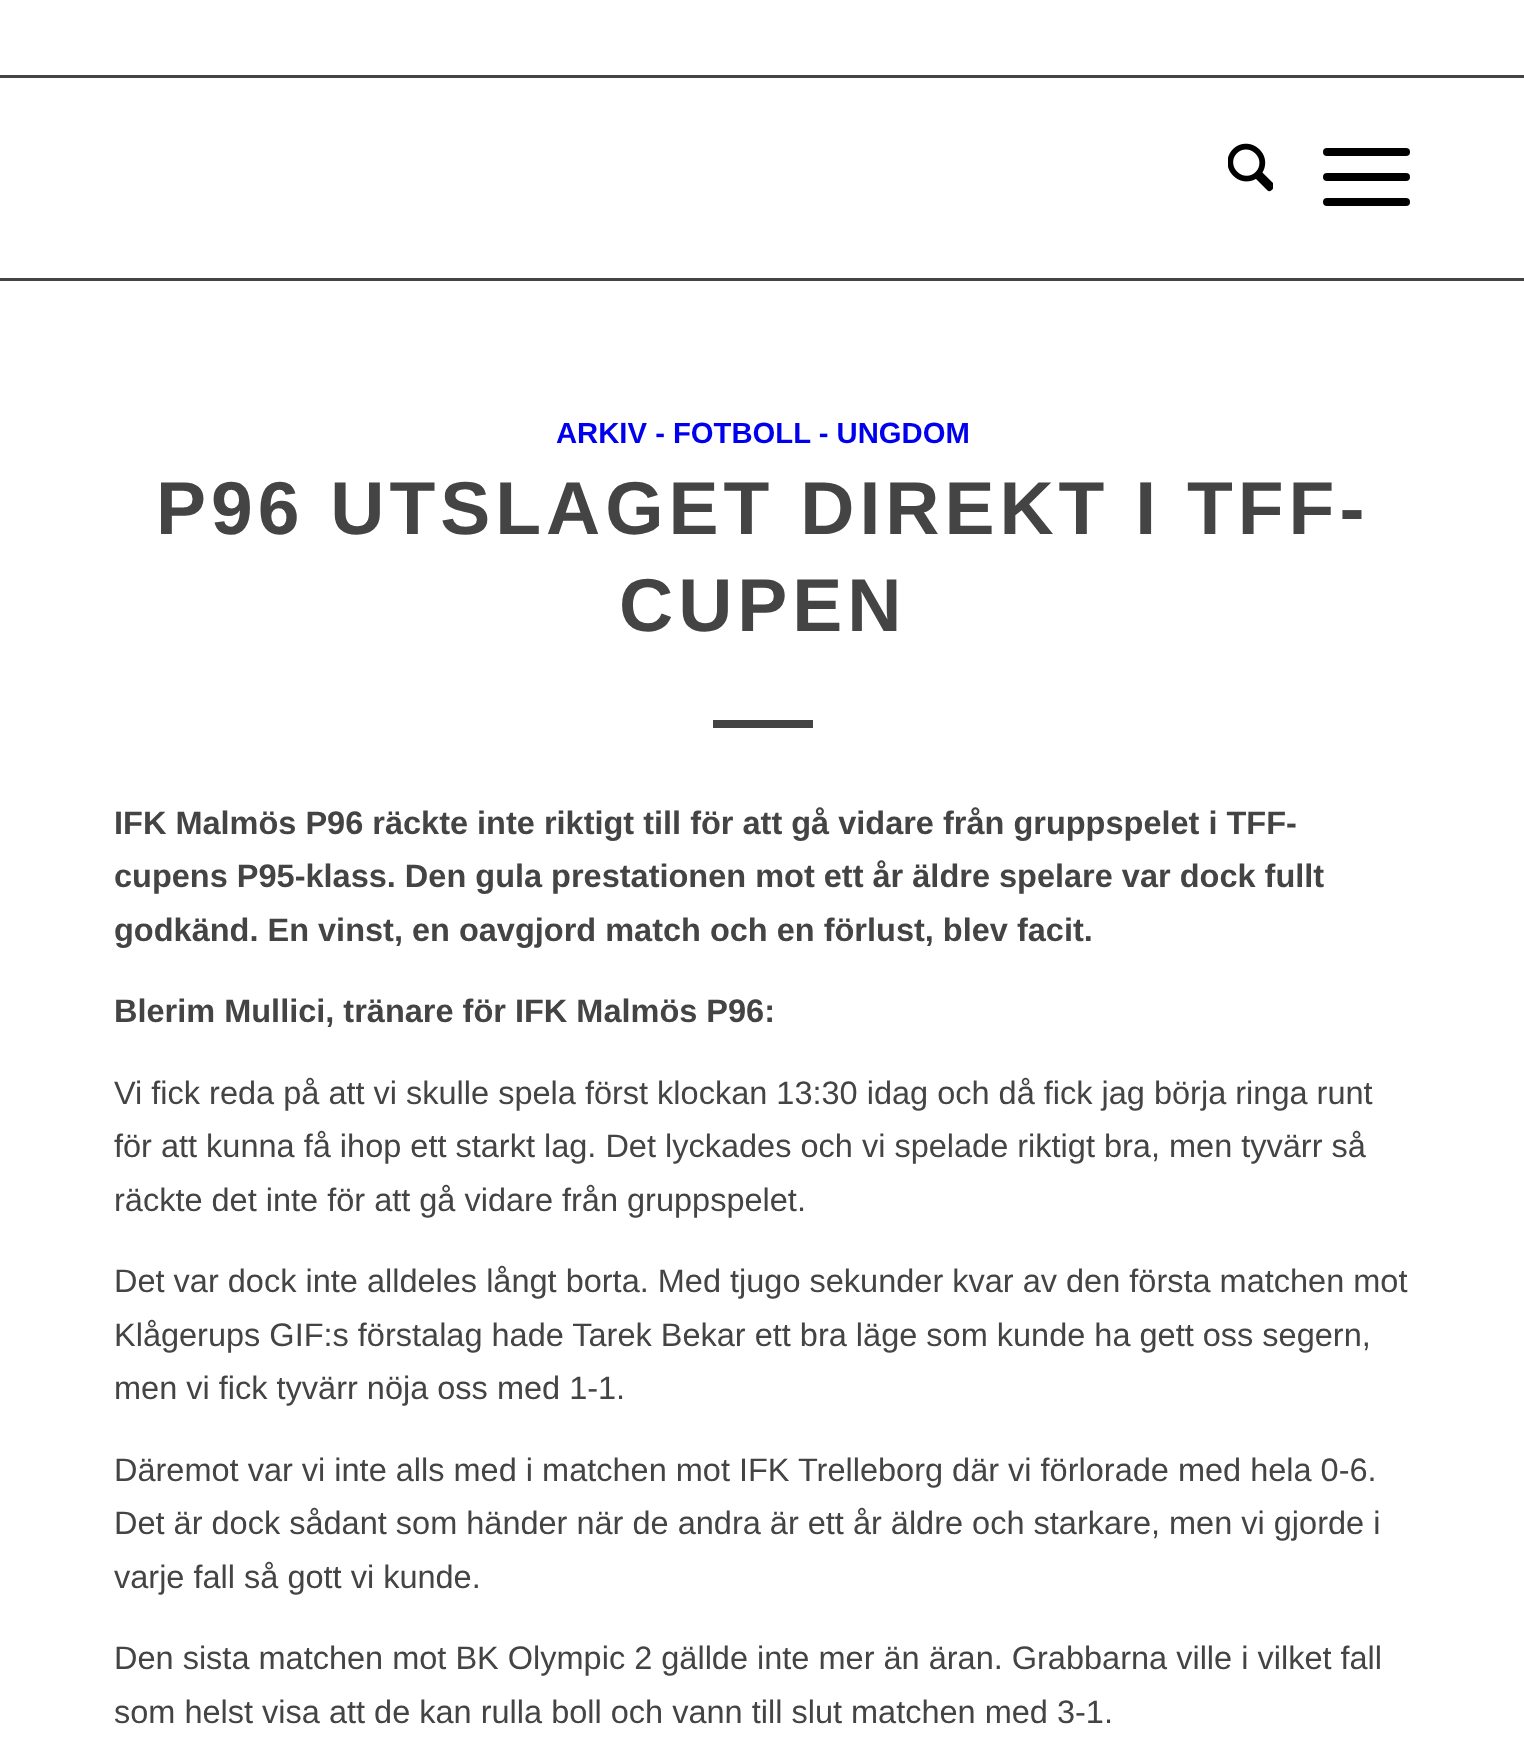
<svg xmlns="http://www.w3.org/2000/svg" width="1524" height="1738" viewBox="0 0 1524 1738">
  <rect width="100%" height="100%" fill="rgb(255,255,255)"/>
  <rect x="0" y="75" width="1524" height="3" fill="rgb(68,68,68)"/>
  <rect x="0" y="278" width="1524" height="3" fill="rgb(68,68,68)"/>
  <image x="1228" y="143" width="45" height="49" href="pic1.png"/>
  <rect x="1323" y="173" width="87" height="8" rx="4" fill="rgb(0,0,0)"/>
  <rect x="1323" y="148" width="87" height="8" rx="4" fill="rgb(0,0,0)"/>
  <rect x="1323" y="198" width="87" height="8" rx="4" fill="rgb(0,0,0)"/>
  <text x="556" y="443" font-family="Liberation Sans" font-size="29.25" font-weight="bold" fill="rgb(0,0,238)">ARKIV - FOTBOLL - UNGDOM</text>
  <g font-family="Liberation Sans" font-size="75" font-weight="bold" letter-spacing="5" fill="rgb(68,68,68)">
    <text x="156" y="534">P96 UTSLAGET DIREKT I TFF-</text>
    <text x="619" y="631">CUPEN</text>
  </g>
  <rect x="713" y="720" width="100" height="8" fill="rgb(68,68,68)"/>
  <g font-family="Liberation Sans" font-size="32.5" font-weight="bold" fill="rgb(68,68,68)">
    <text>
      <tspan x="114" y="834">IFK Malmös P96 räckte inte riktigt till för att gå vidare från gruppspelet i TFF-</tspan>
      <tspan x="114" y="887">cupens P95-klass. Den gula prestationen mot ett år äldre spelare var dock fullt</tspan>
      <tspan x="114" y="941">godkänd. En vinst, en oavgjord match och en förlust, blev facit.</tspan>
    </text>
    <text x="114" y="1022">Blerim Mullici, tränare för IFK Malmös P96:</text>
  </g>
  <g font-family="Liberation Sans" font-size="32.5" fill="rgb(68,68,68)">
    <text>
      <tspan x="114" y="1104">Vi fick reda på att vi skulle spela först klockan 13:30 idag och då fick jag börja ringa runt</tspan>
      <tspan x="114" y="1157">för att kunna få ihop ett starkt lag. Det lyckades och vi spelade riktigt bra, men tyvärr så</tspan>
      <tspan x="114" y="1211">räckte det inte för att gå vidare från gruppspelet.</tspan>
    </text>
    <text>
      <tspan x="114" y="1292">Det var dock inte alldeles långt borta. Med tjugo sekunder kvar av den första matchen mot</tspan>
      <tspan x="114" y="1346">Klågerups GIF:s förstalag hade Tarek Bekar ett bra läge som kunde ha gett oss segern,</tspan>
      <tspan x="114" y="1399">men vi fick tyvärr nöja oss med 1-1.</tspan>
    </text>
    <text>
      <tspan x="114" y="1481">Däremot var vi inte alls med i matchen mot IFK Trelleborg där vi förlorade med hela 0-6.</tspan>
      <tspan x="114" y="1534">Det är dock sådant som händer när de andra är ett år äldre och starkare, men vi gjorde i</tspan>
      <tspan x="114" y="1588">varje fall så gott vi kunde.</tspan>
    </text>
    <text>
      <tspan x="114" y="1669">Den sista matchen mot BK Olympic 2 gällde inte mer än äran. Grabbarna ville i vilket fall</tspan>
      <tspan x="114" y="1723">som helst visa att de kan rulla boll och vann till slut matchen med 3-1.</tspan>
    </text>
  </g>
</svg>
